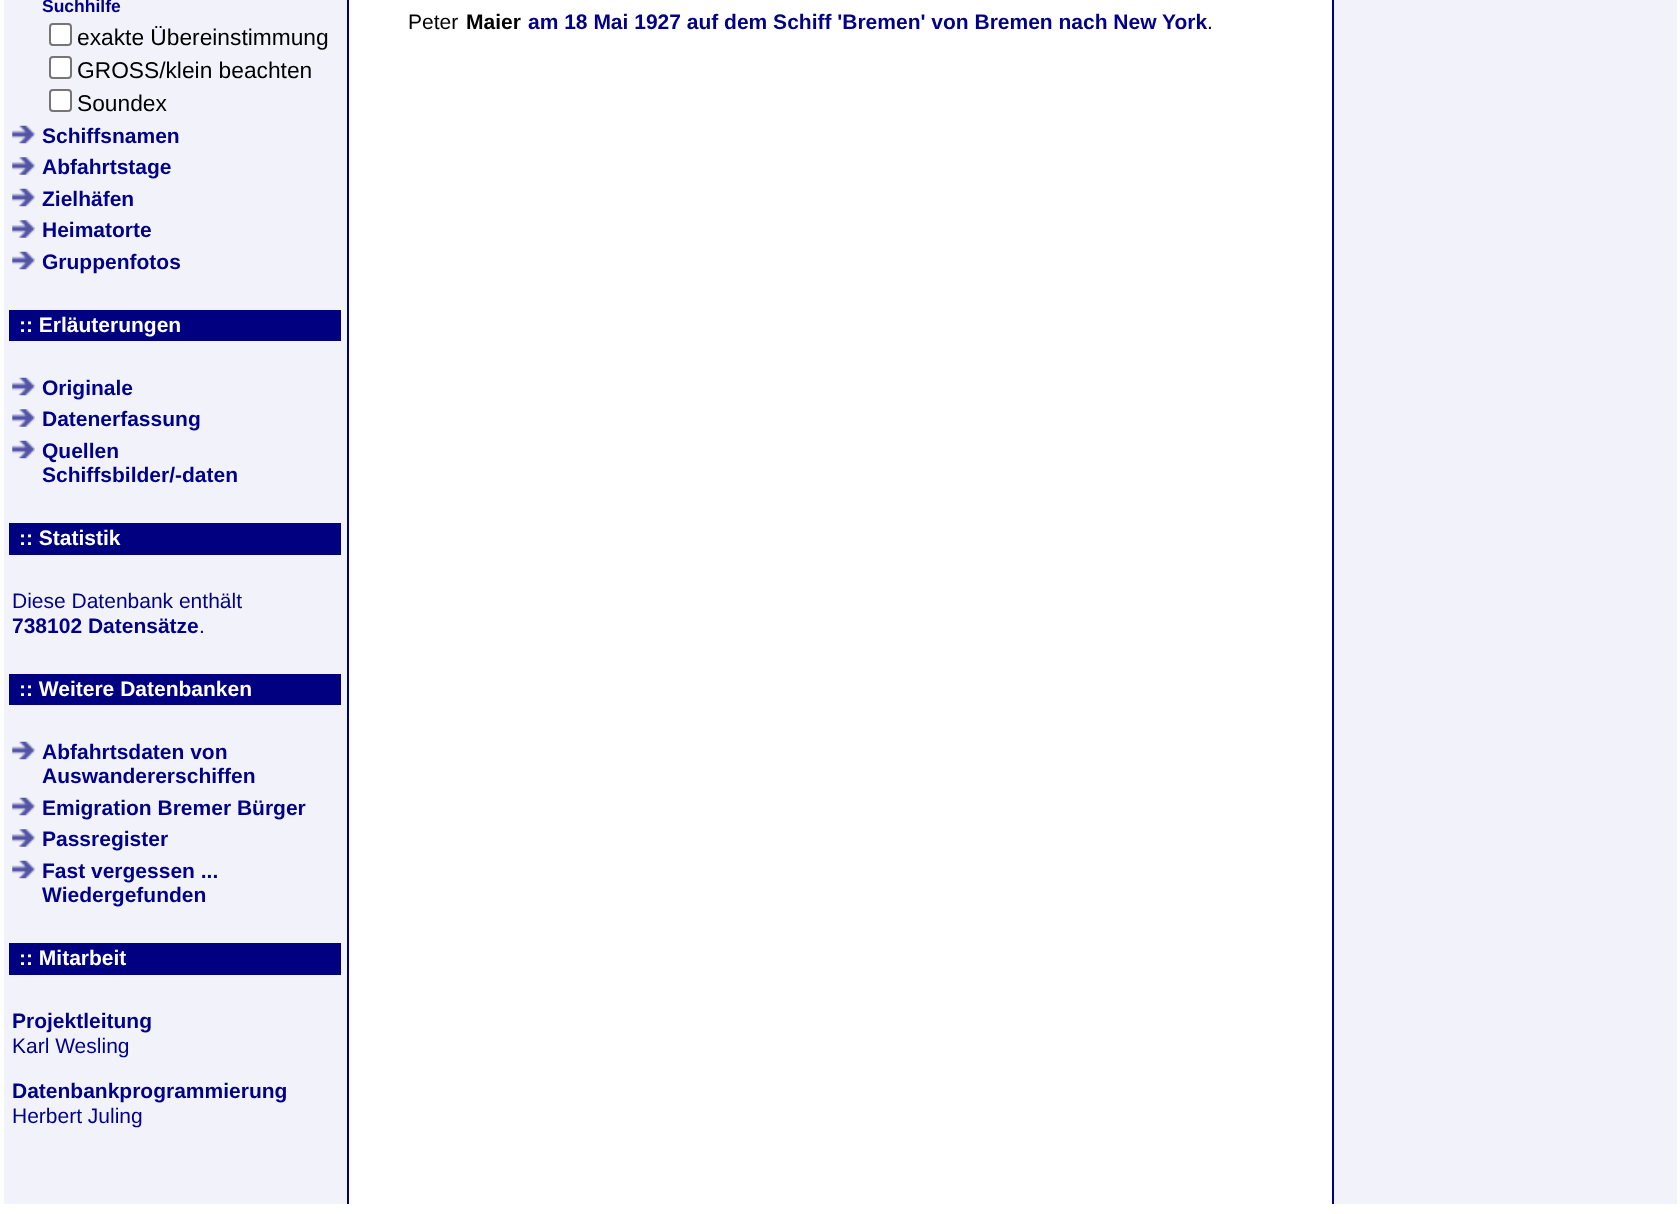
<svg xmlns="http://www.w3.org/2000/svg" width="1680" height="1214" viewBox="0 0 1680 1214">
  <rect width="100%" height="100%" fill="rgb(255,255,255)"/>
  <rect x="4" y="0" width="343" height="1204" fill="rgb(242,242,251)"/>
  <rect x="347" y="0" width="2" height="1204" fill="rgb(0,0,128)"/>
  <text x="42" y="12" font-family="Liberation Sans" font-size="17.5" font-weight="bold" fill="rgb(0,0,136)">Suchhilfe</text>
  <rect x="50" y="24" width="21" height="21" rx="3" fill="rgb(255,255,255)" stroke="rgb(118,118,118)" stroke-width="2"/>
  <text x="77" y="45" font-family="Liberation Sans" font-size="22.75" fill="rgb(0,0,0)">exakte Übereinstimmung</text>
  <rect x="50" y="57" width="21" height="21" rx="3" fill="rgb(255,255,255)" stroke="rgb(118,118,118)" stroke-width="2"/>
  <text x="77" y="78" font-family="Liberation Sans" font-size="22.75" fill="rgb(0,0,0)">GROSS/klein beachten</text>
  <rect x="50" y="90" width="21" height="21" rx="3" fill="rgb(255,255,255)" stroke="rgb(118,118,118)" stroke-width="2"/>
  <text x="77" y="111" font-family="Liberation Sans" font-size="22.75" fill="rgb(0,0,0)">Soundex</text>
  <image x="12" y="125" width="23" height="19" href="pic1.png"/>
  <text x="42" y="143" font-family="Liberation Sans" font-size="21" font-weight="bold" fill="rgb(0,0,136)">Schiffsnamen</text>
  <image x="12" y="157" width="23" height="18" href="pic2.png"/>
  <text x="42" y="174" font-family="Liberation Sans" font-size="21" font-weight="bold" fill="rgb(0,0,136)">Abfahrtstage</text>
  <image x="12" y="188" width="23" height="19" href="pic1.png"/>
  <text x="42" y="206" font-family="Liberation Sans" font-size="21" font-weight="bold" fill="rgb(0,0,136)">Zielhäfen</text>
  <image x="12" y="220" width="23" height="18" href="pic2.png"/>
  <text x="42" y="237" font-family="Liberation Sans" font-size="21" font-weight="bold" fill="rgb(0,0,136)">Heimatorte</text>
  <image x="12" y="251" width="23" height="19" href="pic1.png"/>
  <text x="42" y="269" font-family="Liberation Sans" font-size="21" font-weight="bold" fill="rgb(0,0,136)">Gruppenfotos</text>
  <rect x="9" y="310" width="332" height="31" fill="rgb(0,0,128)"/>
  <text x="19" y="332" font-family="Liberation Sans" font-size="21" font-weight="bold" fill="rgb(255,255,255)">:: Erläuterungen</text>
  <image x="12" y="377" width="23" height="19" href="pic1.png"/>
  <text x="42" y="395" font-family="Liberation Sans" font-size="21" font-weight="bold" fill="rgb(0,0,136)">Originale</text>
  <image x="12" y="409" width="23" height="18" href="pic2.png"/>
  <text x="42" y="426" font-family="Liberation Sans" font-size="21" font-weight="bold" fill="rgb(0,0,136)">Datenerfassung</text>
  <image x="12" y="440" width="23" height="19" href="pic1.png"/>
  <g font-family="Liberation Sans" font-size="21" font-weight="bold" fill="rgb(0,0,136)">
    <text>
      <tspan x="42" y="458">Quellen</tspan>
      <tspan x="42" y="482">Schiffsbilder/-daten</tspan>
    </text>
  </g>
  <rect x="9" y="523" width="332" height="32" fill="rgb(0,0,128)"/>
  <text x="19" y="545" font-family="Liberation Sans" font-size="21" font-weight="bold" fill="rgb(255,255,255)">:: Statistik</text>
  <text x="12" y="608" font-family="Liberation Sans" font-size="21" fill="rgb(0,0,136)">Diese Datenbank enthält</text>
  <text x="12" y="633" font-family="Liberation Sans" font-size="21" font-weight="bold" fill="rgb(0,0,136)">738102 Datensätze</text>
  <text x="199" y="633" font-family="Liberation Sans" font-size="21" fill="rgb(0,0,136)">.</text>
  <rect x="9" y="674" width="332" height="31" fill="rgb(0,0,128)"/>
  <text x="19" y="696" font-family="Liberation Sans" font-size="21" font-weight="bold" fill="rgb(255,255,255)">:: Weitere Datenbanken</text>
  <image x="12" y="741" width="23" height="19" href="pic1.png"/>
  <g font-family="Liberation Sans" font-size="21" font-weight="bold" fill="rgb(0,0,136)">
    <text>
      <tspan x="42" y="759">Abfahrtsdaten von</tspan>
      <tspan x="42" y="783">Auswandererschiffen</tspan>
    </text>
  </g>
  <image x="12" y="797" width="23" height="19" href="pic1.png"/>
  <text x="42" y="815" font-family="Liberation Sans" font-size="21" font-weight="bold" fill="rgb(0,0,136)">Emigration Bremer Bürger</text>
  <image x="12" y="829" width="23" height="18" href="pic2.png"/>
  <text x="42" y="846" font-family="Liberation Sans" font-size="21" font-weight="bold" fill="rgb(0,0,136)">Passregister</text>
  <image x="12" y="860" width="23" height="19" href="pic1.png"/>
  <g font-family="Liberation Sans" font-size="21" font-weight="bold" fill="rgb(0,0,136)">
    <text>
      <tspan x="42" y="878">Fast vergessen ...</tspan>
      <tspan x="42" y="902">Wiedergefunden</tspan>
    </text>
  </g>
  <rect x="9" y="943" width="332" height="32" fill="rgb(0,0,128)"/>
  <text x="19" y="965" font-family="Liberation Sans" font-size="21" font-weight="bold" fill="rgb(255,255,255)">:: Mitarbeit</text>
  <text x="12" y="1028" font-family="Liberation Sans" font-size="21" font-weight="bold" fill="rgb(0,0,136)">Projektleitung</text>
  <text x="12" y="1053" font-family="Liberation Sans" font-size="21" fill="rgb(0,0,136)">Karl Wesling</text>
  <text x="12" y="1098" font-family="Liberation Sans" font-size="21" font-weight="bold" fill="rgb(0,0,136)">Datenbankprogrammierung</text>
  <text x="12" y="1123" font-family="Liberation Sans" font-size="21" fill="rgb(0,0,136)">Herbert Juling</text>
  <text x="408" y="29" font-family="Liberation Sans" font-size="21" fill="rgb(0,0,0)">Peter</text>
  <text x="466" y="29" font-family="Liberation Sans" font-size="21" font-weight="bold" fill="rgb(0,0,0)">Maier</text>
  <text x="528" y="29" font-family="Liberation Sans" font-size="21" font-weight="bold" fill="rgb(0,0,136)">am 18 Mai 1927 auf dem Schiff 'Bremen' von Bremen nach New York</text>
  <text x="1207" y="29" font-family="Liberation Sans" font-size="21" fill="rgb(0,0,0)">.</text>
  <rect x="1334" y="0" width="343" height="1204" fill="rgb(242,242,251)"/>
  <rect x="1332" y="0" width="2" height="1204" fill="rgb(0,0,128)"/>
</svg>
